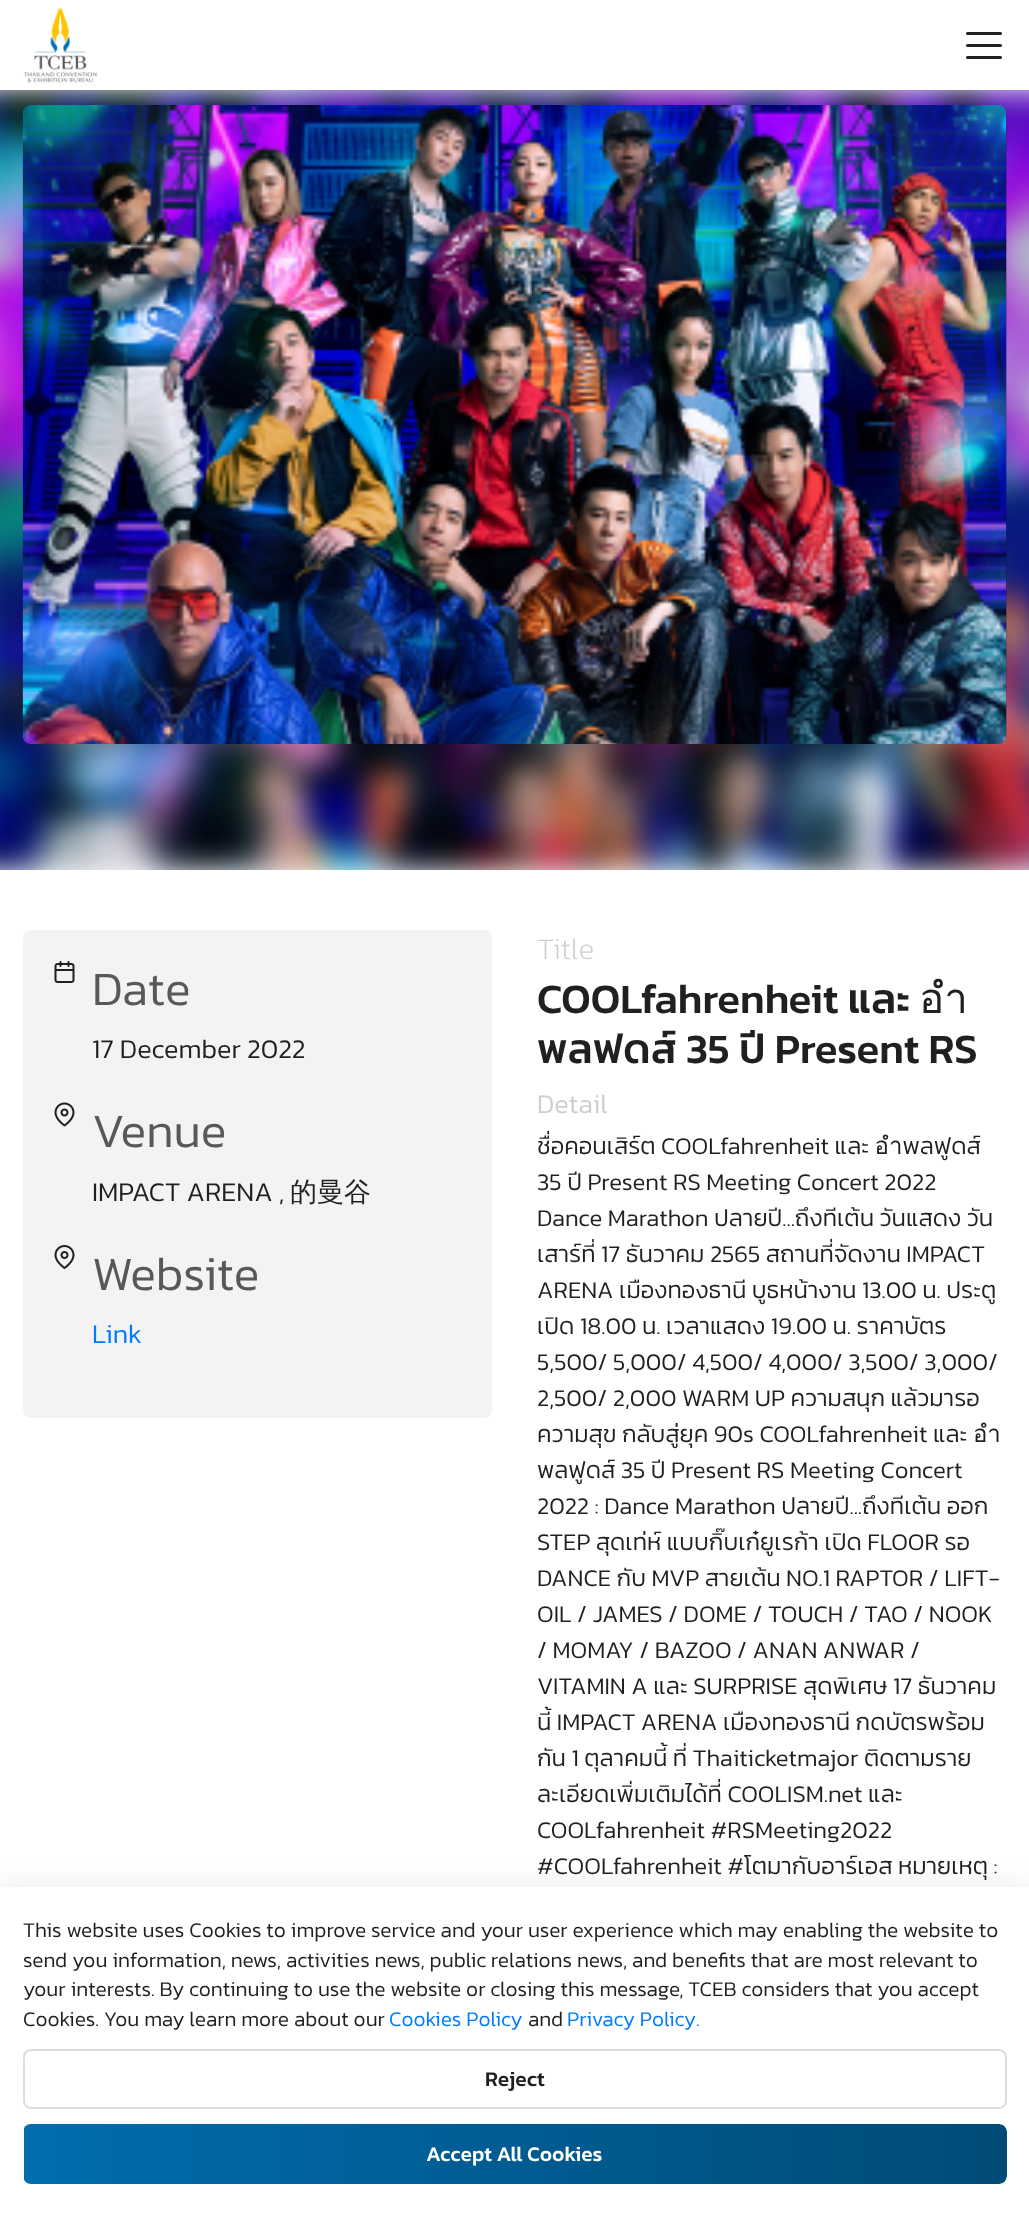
<svg xmlns="http://www.w3.org/2000/svg" width="1029" height="2214" viewBox="0 0 1029 2214">
  <defs>
    <clipPath id="clip1"><rect x="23" y="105" width="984" height="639" rx="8"/></clipPath>
    <clipPath id="clip2"><rect x="537" y="930" width="470" height="135"/></clipPath>
    <clipPath id="clip3"><rect x="23" y="2124" width="984" height="60" rx="8"/></clipPath>
    <linearGradient id="g1" gradientUnits="userSpaceOnUse" x1="24" y1="2154" x2="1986" y2="2154"><stop offset="0" stop-color="rgb(0,109,173)"/><stop offset="0.51" stop-color="rgb(0,74,118)"/><stop offset="1" stop-color="rgb(0,109,173)"/></linearGradient>
  </defs>
  <rect width="100%" height="100%" fill="rgb(255,255,255)"/>
  <image x="23" y="7" width="74" height="76" href="pic1.png"/>
  <rect x="966" y="32" width="36" height="3" rx="1.5" fill="rgb(33,31,31)"/>
  <rect x="966" y="44" width="36" height="3" rx="1.5" fill="rgb(33,31,31)"/>
  <rect x="966" y="56" width="36" height="3" rx="1.5" fill="rgb(33,31,31)"/>
  <image x="0" y="90" width="1029" height="780" href="pic2.png"/>
  <g clip-path="url(#clip1)">
    <rect x="23" y="105" width="984" height="639" rx="8" fill="rgba(0,0,0,0.3)" filter="blur(4px)"/>
  </g>
  <image x="22" y="105" width="985" height="639" href="pic3.png"/>
  <rect x="23" y="930" width="469" height="488" rx="8" fill="rgb(243,243,243)"/>
  <image x="54" y="961" width="21" height="22" href="pic4.png"/>
  <text x="92" y="1005" font-family="Kanit" font-size="48" font-weight="300" fill="rgb(88,88,88)">Date</text>
  <text x="92" y="1058" font-family="Kanit" font-size="27" font-weight="300" fill="rgb(33,31,31)">17 December 2022</text>
  <image x="54" y="1102" width="21" height="25" href="pic5.png"/>
  <text x="92" y="1147" font-family="Kanit" font-size="48" font-weight="300" fill="rgb(88,88,88)">Venue</text>
  <text x="92" y="1201" font-family="Kanit" font-size="27" font-weight="300" fill="rgb(33,31,31)">IMPACT ARENA ,</text>
  <text x="290" y="1201" font-family="WenQuanYi Zen Hei" font-size="27" font-weight="500" fill="rgb(33,31,31)">的曼谷</text>
  <image x="54" y="1245" width="21" height="24" href="pic6.png"/>
  <text x="92" y="1290" font-family="Kanit" font-size="48" font-weight="300" fill="rgb(88,88,88)">Website</text>
  <text x="92" y="1343" font-family="Kanit" font-size="27" font-weight="300" fill="rgb(0,123,255)">Link</text>
  <text x="537" y="959" font-family="Kanit" font-size="30" font-weight="200" fill="rgb(206,206,206)">Title</text>
  <text x="537" y="1013" font-family="Kanit" font-size="42" font-weight="500" fill="rgb(33,31,31)">COOLfahrenheit และ อำ</text>
  <g clip-path="url(#clip2)">
    <text x="537" y="1063" font-family="Kanit" font-size="42" font-weight="500" fill="rgb(33,31,31)">พลฟูดส์ 35 ปี Present RS</text>
  </g>
  <text x="537" y="1113" font-family="Kanit" font-size="27" font-weight="300" fill="rgb(206,206,206)">Detail</text>
  <g font-family="Kanit" font-size="24" font-weight="300" fill="rgb(33,31,31)">
    <text>
      <tspan x="537" y="1154">ชื่อคอนเสิร์ต COOLfahrenheit และ อำพลฟูดส์</tspan>
      <tspan x="537" y="1190">35 ปี Present RS Meeting Concert 2022</tspan>
      <tspan x="537" y="1226">Dance Marathon ปลายปี...ถึงทีเต้น วันแสดง วัน</tspan>
      <tspan x="537" y="1262">เสาร์ที่ 17 ธันวาคม 2565 สถานที่จัดงาน IMPACT</tspan>
      <tspan x="537" y="1298">ARENA เมืองทองธานี บูธหน้างาน 13.00 น. ประตู</tspan>
      <tspan x="537" y="1334">เปิด 18.00 น. เวลาแสดง 19.00 น. ราคาบัตร</tspan>
      <tspan x="537" y="1370">5,500/ 5,000/ 4,500/ 4,000/ 3,500/ 3,000/</tspan>
      <tspan x="537" y="1406">2,500/ 2,000 WARM UP ความสนุก แล้วมารอ</tspan>
      <tspan x="537" y="1442">ความสุข กลับสู่ยุค 90s COOLfahrenheit และ อำ</tspan>
      <tspan x="537" y="1478">พลฟูดส์ 35 ปี Present RS Meeting Concert</tspan>
      <tspan x="537" y="1514">2022 : Dance Marathon ปลายปี...ถึงทีเต้น ออก</tspan>
      <tspan x="537" y="1550">STEP สุดเท่ห์ แบบกิ๊บเก๋ยูเรก้า เปิด FLOOR รอ</tspan>
      <tspan x="537" y="1586">DANCE กับ MVP สายเต้น NO.1 RAPTOR / LIFT-</tspan>
      <tspan x="537" y="1622">OIL / JAMES / DOME / TOUCH / TAO / NOOK</tspan>
      <tspan x="537" y="1658">/ MOMAY / BAZOO / ANAN ANWAR /</tspan>
      <tspan x="537" y="1694">VITAMIN A และ SURPRISE สุดพิเศษ 17 ธันวาคม</tspan>
      <tspan x="537" y="1730">นี้ IMPACT ARENA เมืองทองธานี กดบัตรพร้อม</tspan>
      <tspan x="537" y="1766">กัน 1 ตุลาคมนี้ ที่ Thaiticketmajor ติดตามราย</tspan>
      <tspan x="537" y="1802">ละเอียดเพิ่มเติมได้ที่ COOLISM.net และ</tspan>
      <tspan x="537" y="1838">COOLfahrenheit #RSMeeting2022</tspan>
      <tspan x="537" y="1874">#COOLfahrenheit #โตมากับอาร์เอส หมายเหตุ :</tspan>
    </text>
  </g>
  <rect x="0" y="1880" width="1029" height="327" fill="rgba(0,0,0,0.05)" filter="blur(11px)"/>
  <rect x="0" y="1887" width="1029" height="327" fill="rgb(255,255,255)"/>
  <g font-family="Kanit" font-size="21" font-weight="300" fill="rgb(33,31,31)">
    <text>
      <tspan x="23" y="1937">This website uses Cookies to improve service and your user experience which may enabling the website to</tspan>
      <tspan x="23" y="1967">send you information, news, activities news, public relations news, and benefits that are most relevant to</tspan>
      <tspan x="23" y="1996">your interests. By continuing to use the website or closing this message, TCEB considers that you accept</tspan>
      <tspan x="23" y="2026">Cookies. You may learn more about our</tspan>
    </text>
  </g>
  <text x="389" y="2026" font-family="Kanit" font-size="21" font-weight="300" fill="rgb(0,123,255)">Cookies Policy</text>
  <text x="528" y="2026" font-family="Kanit" font-size="21" font-weight="300" fill="rgb(33,31,31)">and</text>
  <text x="567" y="2026" font-family="Kanit" font-size="21" font-weight="300" fill="rgb(0,123,255)">Privacy Policy.</text>
  <rect x="24" y="2050" width="982" height="58" rx="7" fill="none" stroke="rgb(221,221,221)" stroke-width="2"/>
  <text x="485" y="2086" font-family="Kanit" font-size="21" font-weight="500" fill="rgb(33,31,31)">Reject</text>
  <g clip-path="url(#clip3)">
    <path d="M24 2124H999C1003.5 2124 1007 2127.5 1007 2132V2176C1007 2180.5 1003.5 2184 999 2184H24Z" fill="url(#g1)"/>
  </g>
  <text x="426" y="2161" font-family="Kanit" font-size="21" font-weight="500" fill="rgb(255,255,255)">Accept All Cookies</text>
</svg>
